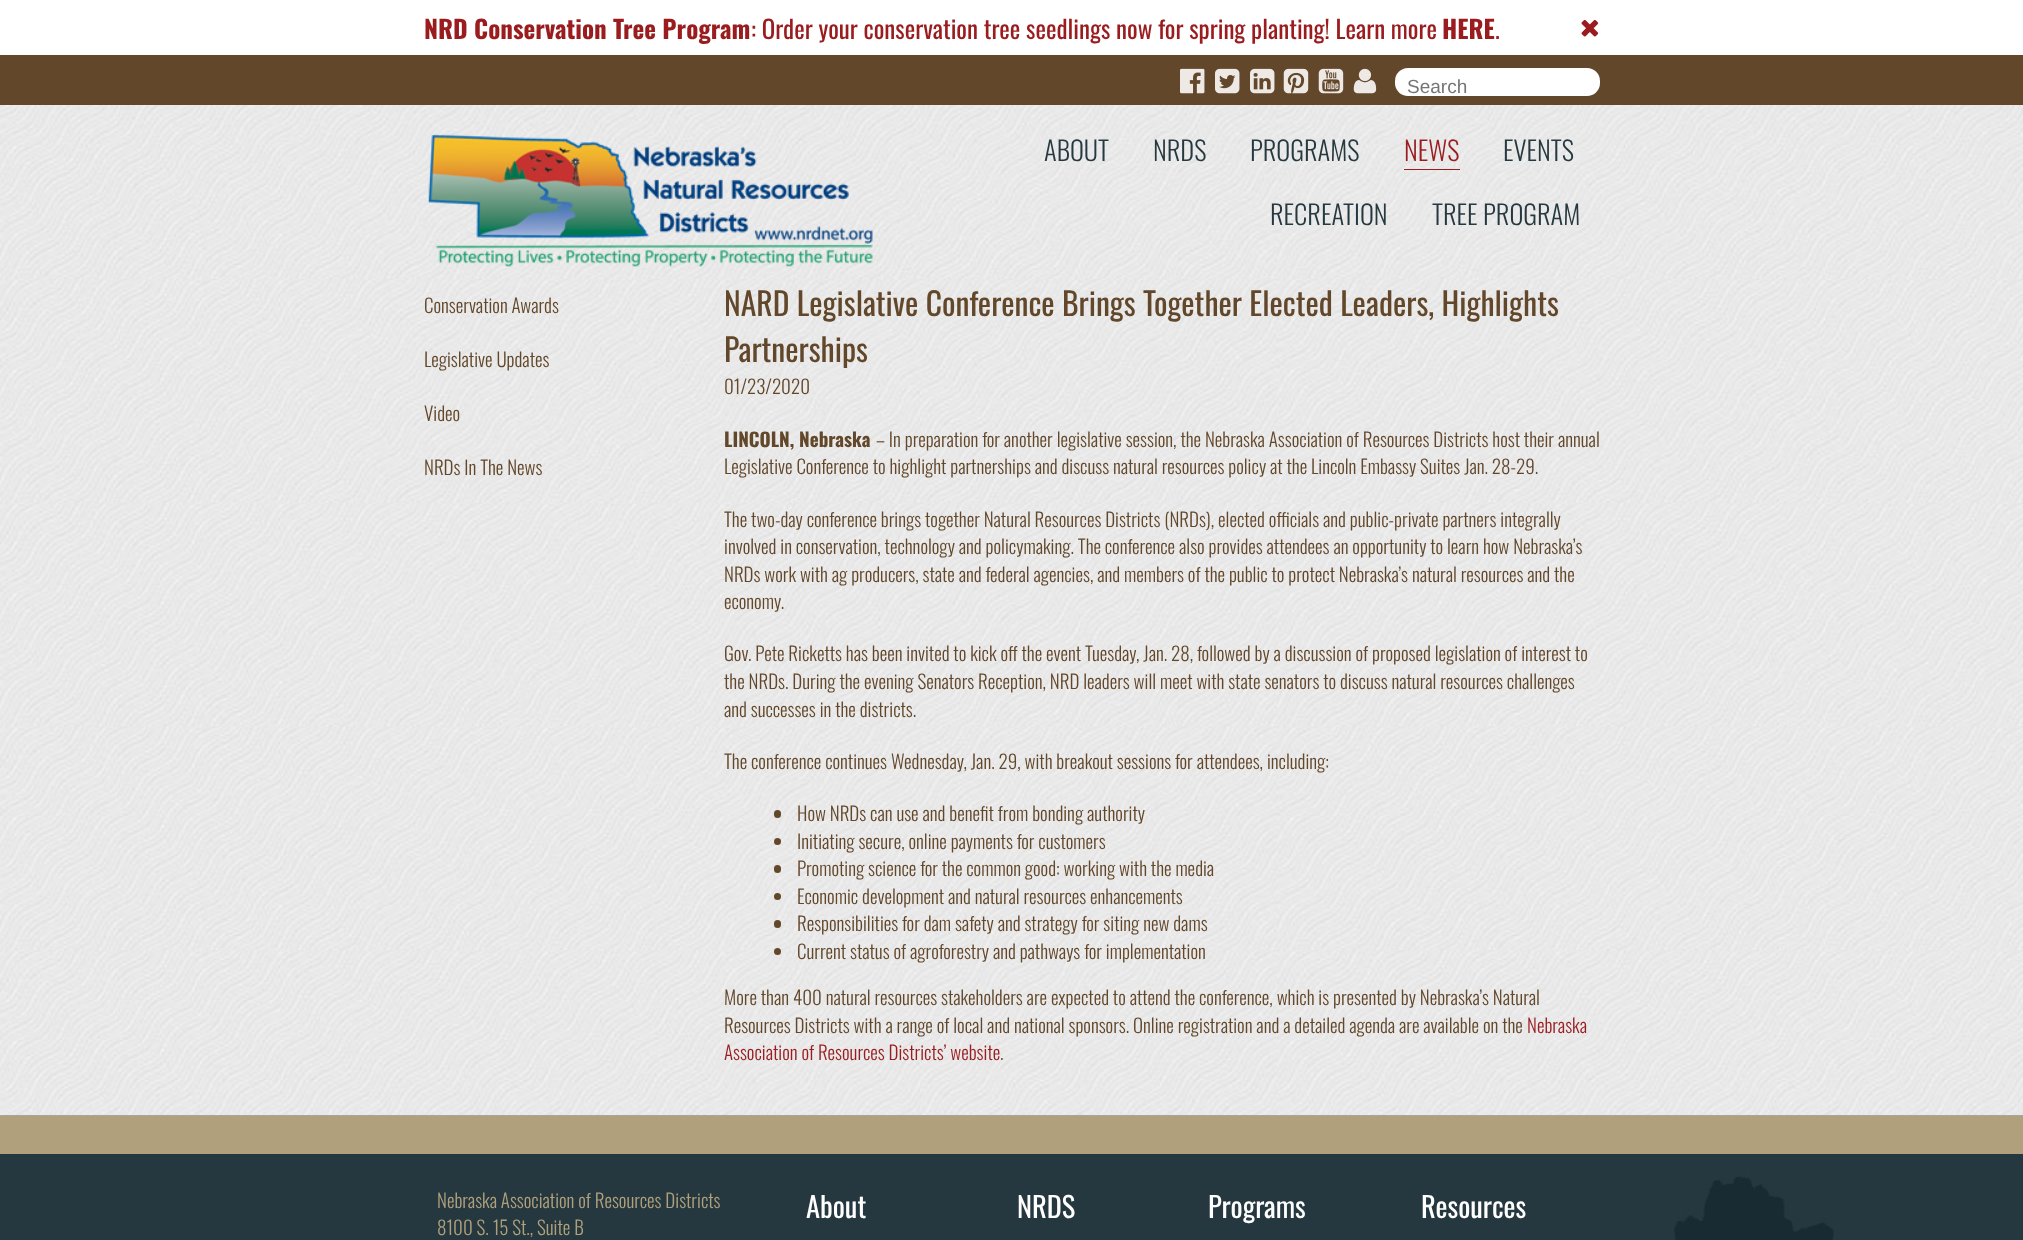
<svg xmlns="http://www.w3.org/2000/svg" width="2023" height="1240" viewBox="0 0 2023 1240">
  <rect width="100%" height="100%" fill="rgb(255,255,255)"/>
  <text x="424" y="39" font-family="Oswald" font-size="25" font-weight="bold" fill="rgb(154,28,31)">NRD Conservation Tree Program</text>
  <text x="751" y="39" font-family="Oswald" font-size="25" fill="rgb(154,28,31)">: Order your conservation tree seedlings now for spring planting! Learn more</text>
  <text x="1442" y="39" font-family="Oswald" font-size="25" font-weight="bold" fill="rgb(154,28,31)">HERE</text>
  <text x="1495" y="39" font-family="Oswald" font-size="25" fill="rgb(154,28,31)">.</text>
  <image x="1581" y="19" width="18" height="18" href="pic1.png"/>
  <image x="0" y="105" width="2023" height="1010" href="pic2.png"/>
  <rect x="0" y="55" width="2023" height="50" fill="rgb(98,71,42)"/>
  <image x="1180" y="68" width="25" height="26" href="pic3.png"/>
  <image x="1215" y="68" width="25" height="26" href="pic4.png"/>
  <image x="1250" y="68" width="25" height="26" href="pic5.png"/>
  <image x="1283" y="68" width="26" height="26" href="pic6.png"/>
  <image x="1318" y="68" width="26" height="26" href="pic7.png"/>
  <image x="1353" y="68" width="24" height="26" href="pic8.png"/>
  <rect x="1395" y="68" width="205" height="28" rx="13" fill="rgb(255,255,255)"/>
  <text x="1407" y="93" font-family="Liberation Sans" font-size="19" fill="rgb(117,117,117)">Search</text>
  <image x="428" y="134" width="445" height="133" href="pic9.png"/>
  <g font-family="Oswald" font-size="26.5" font-weight="300" fill="rgb(38,57,64)">
    <text x="1044" y="161">ABOUT</text>
    <text x="1153" y="161">NRDS</text>
    <text x="1250" y="161">PROGRAMS</text>
  </g>
  <text x="1404" y="161" font-family="Oswald" font-size="26.5" font-weight="300" fill="rgb(154,28,31)">NEWS</text>
  <rect x="1404" y="169" width="56" height="1" fill="rgb(154,28,31)"/>
  <g font-family="Oswald" font-size="26.5" font-weight="300" fill="rgb(38,57,64)">
    <text x="1503" y="161">EVENTS</text>
    <text x="1270" y="225">RECREATION</text>
    <text x="1432" y="225">TREE PROGRAM</text>
  </g>
  <g font-family="Oswald" font-size="19" font-weight="300" fill="rgb(98,71,42)">
    <text x="424" y="313">Conservation Awards</text>
    <text x="424" y="367">Legislative Updates</text>
    <text x="424" y="421">Video</text>
    <text x="424" y="475">NRDs In The News</text>
  </g>
  <g font-family="Oswald" font-size="31.7" fill="rgb(98,71,42)">
    <text>
      <tspan x="724" y="316">NARD Legislative Conference Brings Together Elected Leaders, Highlights</tspan>
      <tspan x="724" y="362">Partnerships</tspan>
    </text>
  </g>
  <text x="724" y="394" font-family="Oswald" font-size="19" font-weight="300" fill="rgb(98,71,42)">01/23/2020</text>
  <text x="724" y="447" font-family="Oswald" font-size="19" font-weight="bold" fill="rgb(98,71,42)">LINCOLN, Nebraska</text>
  <g font-family="Oswald" font-size="19" font-weight="300" fill="rgb(98,71,42)">
    <text x="876" y="447">– In preparation for another legislative session, the Nebraska Association of Resources Districts host their annual</text>
    <text x="724" y="474">Legislative Conference to highlight partnerships and discuss natural resources policy at the Lincoln Embassy Suites Jan. 28-29.</text>
    <text>
      <tspan x="724" y="527">The two-day conference brings together Natural Resources Districts (NRDs), elected officials and public-private partners integrally</tspan>
      <tspan x="724" y="554">involved in conservation, technology and policymaking. The conference also provides attendees an opportunity to learn how Nebraska’s</tspan>
      <tspan x="724" y="582">NRDs work with ag producers, state and federal agencies, and members of the public to protect Nebraska’s natural resources and the</tspan>
      <tspan x="724" y="609">economy.</tspan>
    </text>
    <text>
      <tspan x="724" y="661">Gov. Pete Ricketts has been invited to kick off the event Tuesday, Jan. 28, followed by a discussion of proposed legislation of interest to</tspan>
      <tspan x="724" y="689">the NRDs. During the evening Senators Reception, NRD leaders will meet with state senators to discuss natural resources challenges</tspan>
      <tspan x="724" y="717">and successes in the districts.</tspan>
    </text>
    <text x="724" y="769">The conference continues Wednesday, Jan. 29, with breakout sessions for attendees, including:</text>
  </g>
  <rect x="774" y="810" width="7" height="8" rx="3.5" fill="rgb(98,71,42)"/>
  <text x="797" y="821" font-family="Oswald" font-size="19" font-weight="300" fill="rgb(98,71,42)">How NRDs can use and benefit from bonding authority</text>
  <circle cx="777.5" cy="841.5" r="3.5" fill="rgb(98,71,42)"/>
  <text x="797" y="849" font-family="Oswald" font-size="19" font-weight="300" fill="rgb(98,71,42)">Initiating secure, online payments for customers</text>
  <rect x="774" y="865" width="7" height="8" rx="3.5" fill="rgb(98,71,42)"/>
  <text x="797" y="876" font-family="Oswald" font-size="19" font-weight="300" fill="rgb(98,71,42)">Promoting science for the common good: working with the media</text>
  <circle cx="777.5" cy="896.5" r="3.5" fill="rgb(98,71,42)"/>
  <text x="797" y="904" font-family="Oswald" font-size="19" font-weight="300" fill="rgb(98,71,42)">Economic development and natural resources enhancements</text>
  <rect x="774" y="920" width="7" height="8" rx="3.5" fill="rgb(98,71,42)"/>
  <text x="797" y="931" font-family="Oswald" font-size="19" font-weight="300" fill="rgb(98,71,42)">Responsibilities for dam safety and strategy for siting new dams</text>
  <circle cx="777.5" cy="951.5" r="3.5" fill="rgb(98,71,42)"/>
  <g font-family="Oswald" font-size="19" font-weight="300" fill="rgb(98,71,42)">
    <text x="797" y="959">Current status of agroforestry and pathways for implementation</text>
    <text>
      <tspan x="724" y="1005">More than 400 natural resources stakeholders are expected to attend the conference, which is presented by Nebraska’s Natural</tspan>
      <tspan x="724" y="1033">Resources Districts with a range of local and national sponsors. Online registration and a detailed agenda are available on the</tspan>
    </text>
  </g>
  <g font-family="Oswald" font-size="19" font-weight="300" fill="rgb(154,28,31)">
    <text x="1527" y="1033">Nebraska</text>
    <text x="724" y="1060">Association of Resources Districts’ website</text>
  </g>
  <text x="1000" y="1060" font-family="Oswald" font-size="19" font-weight="300" fill="rgb(98,71,42)">.</text>
  <image x="0" y="1154" width="2023" height="86" href="pic10.png"/>
  <rect x="0" y="1116" width="2023" height="38" fill="rgb(176,160,124)"/>
  <rect x="0" y="1115" width="2023" height="1" fill="rgb(165,165,165)"/>
  <g font-family="Oswald" font-size="19" font-weight="300" fill="rgb(176,160,124)">
    <text>
      <tspan x="437" y="1208">Nebraska Association of Resources Districts</tspan>
      <tspan x="437" y="1235">8100 S. 15 St., Suite B</tspan>
    </text>
  </g>
  <g font-family="Oswald" font-size="28.5" fill="rgb(255,255,255)">
    <text x="806" y="1218">About</text>
    <text x="1017" y="1218">NRDS</text>
    <text x="1208" y="1218">Programs</text>
    <text x="1421" y="1218">Resources</text>
  </g>
</svg>
